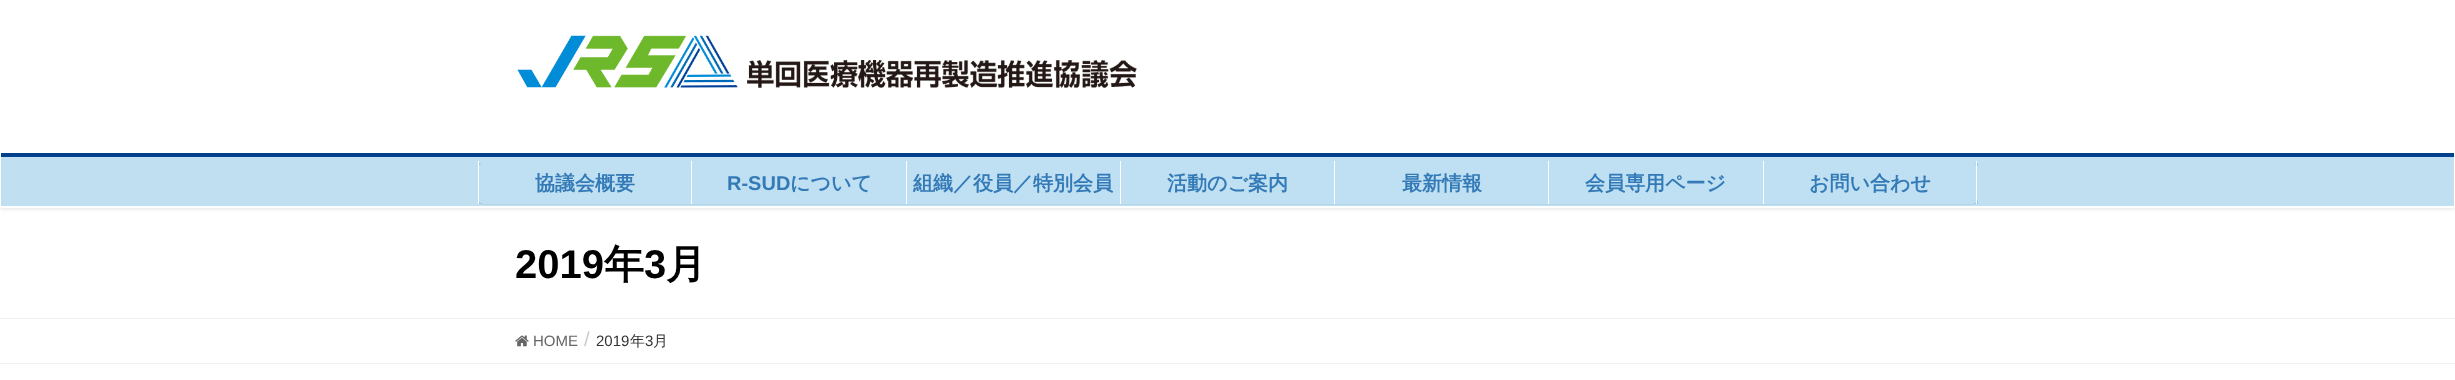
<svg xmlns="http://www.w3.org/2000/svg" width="2455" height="380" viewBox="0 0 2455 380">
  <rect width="100%" height="100%" fill="rgb(255,255,255)"/>
  <rect x="0" y="1" width="2455" height="208" fill="rgba(0,0,0,0.1)" filter="blur(2px)"/>
  <rect x="0" y="0" width="2455" height="208" fill="rgb(255,255,255)"/>
  <image x="517" y="35" width="620" height="53" href="pic1.png"/>
  <rect x="1" y="157" width="2453" height="49" fill="rgb(192,224,242)"/>
  <rect x="1" y="153" width="2453" height="4" fill="rgb(0,64,141)"/>
  <rect x="478" y="164" width="1500" height="41" rx="5" fill="rgba(0,0,0,0.05)" filter="blur(0.5px)"/>
  <rect x="478" y="163" width="1500" height="41" rx="5" fill="rgb(255,255,255)"/>
  <rect x="479" y="163" width="1499" height="41" fill="rgba(0,129,203,0.25)"/>
  <rect x="478" y="161" width="1" height="43" fill="rgb(255,255,255)"/>
  <text x="535" y="190" font-family="WenQuanYi Zen Hei" font-size="20" font-weight="bold" fill="rgb(51,122,183)">協議会概要</text>
  <rect x="691" y="161" width="1" height="43" fill="rgb(255,255,255)"/>
  <text x="727" y="190" font-family="Liberation Sans" font-size="20" font-weight="bold" fill="rgb(51,122,183)">R-SUD</text>
  <text x="790" y="190" font-family="WenQuanYi Zen Hei" font-size="20" font-weight="bold" fill="rgb(51,122,183)">について</text>
  <rect x="906" y="161" width="1" height="43" fill="rgb(255,255,255)"/>
  <text x="913" y="190" font-family="WenQuanYi Zen Hei" font-size="20" font-weight="bold" fill="rgb(51,122,183)">組織／役員／特別会員</text>
  <rect x="1120" y="161" width="1" height="43" fill="rgb(255,255,255)"/>
  <text x="1167" y="190" font-family="WenQuanYi Zen Hei" font-size="20" font-weight="bold" fill="rgb(51,122,183)">活動のご案内</text>
  <rect x="1334" y="161" width="1" height="43" fill="rgb(255,255,255)"/>
  <text x="1402" y="190" font-family="WenQuanYi Zen Hei" font-size="20" font-weight="bold" fill="rgb(51,122,183)">最新情報</text>
  <rect x="1548" y="161" width="1" height="43" fill="rgb(255,255,255)"/>
  <text x="1585" y="190" font-family="WenQuanYi Zen Hei" font-size="20" font-weight="bold" fill="rgb(51,122,183)">会員専用ページ</text>
  <rect x="1976" y="161" width="1" height="43" fill="rgb(255,255,255)"/>
  <rect x="1763" y="161" width="1" height="43" fill="rgb(255,255,255)"/>
  <text x="1809" y="190" font-family="WenQuanYi Zen Hei" font-size="20" font-weight="bold" fill="rgb(51,122,183)">お問い合わせ</text>
  <rect x="0" y="318" width="2455" height="1" fill="rgb(238,238,238)"/>
  <text x="515" y="278" font-family="Liberation Sans" font-size="40" font-weight="bold" fill="rgb(0,0,0)">2019</text>
  <text x="604" y="278" font-family="WenQuanYi Zen Hei" font-size="40" font-weight="bold" fill="rgb(0,0,0)">年</text>
  <text x="644" y="278" font-family="Liberation Sans" font-size="40" font-weight="bold" fill="rgb(0,0,0)">3</text>
  <text x="666" y="278" font-family="WenQuanYi Zen Hei" font-size="40" font-weight="bold" fill="rgb(0,0,0)">月</text>
  <rect x="0" y="363" width="2455" height="1" fill="rgb(243,243,243)"/>
  <image x="515" y="335" width="14" height="12" href="pic2.png"/>
  <text x="533" y="346" font-family="Liberation Sans" font-size="15" fill="rgb(102,102,102)">HOME</text>
  <text x="584" y="346" font-family="Liberation Sans" font-size="20" fill="rgb(204,204,204)">/</text>
  <text x="596" y="346" font-family="Liberation Sans" font-size="15" fill="rgb(51,51,51)">2019</text>
  <text x="630" y="346" font-family="WenQuanYi Zen Hei" font-size="15" font-weight="500" fill="rgb(51,51,51)">年</text>
  <text x="645" y="346" font-family="Liberation Sans" font-size="15" fill="rgb(51,51,51)">3</text>
  <text x="653" y="346" font-family="WenQuanYi Zen Hei" font-size="15" font-weight="500" fill="rgb(51,51,51)">月</text>
</svg>
